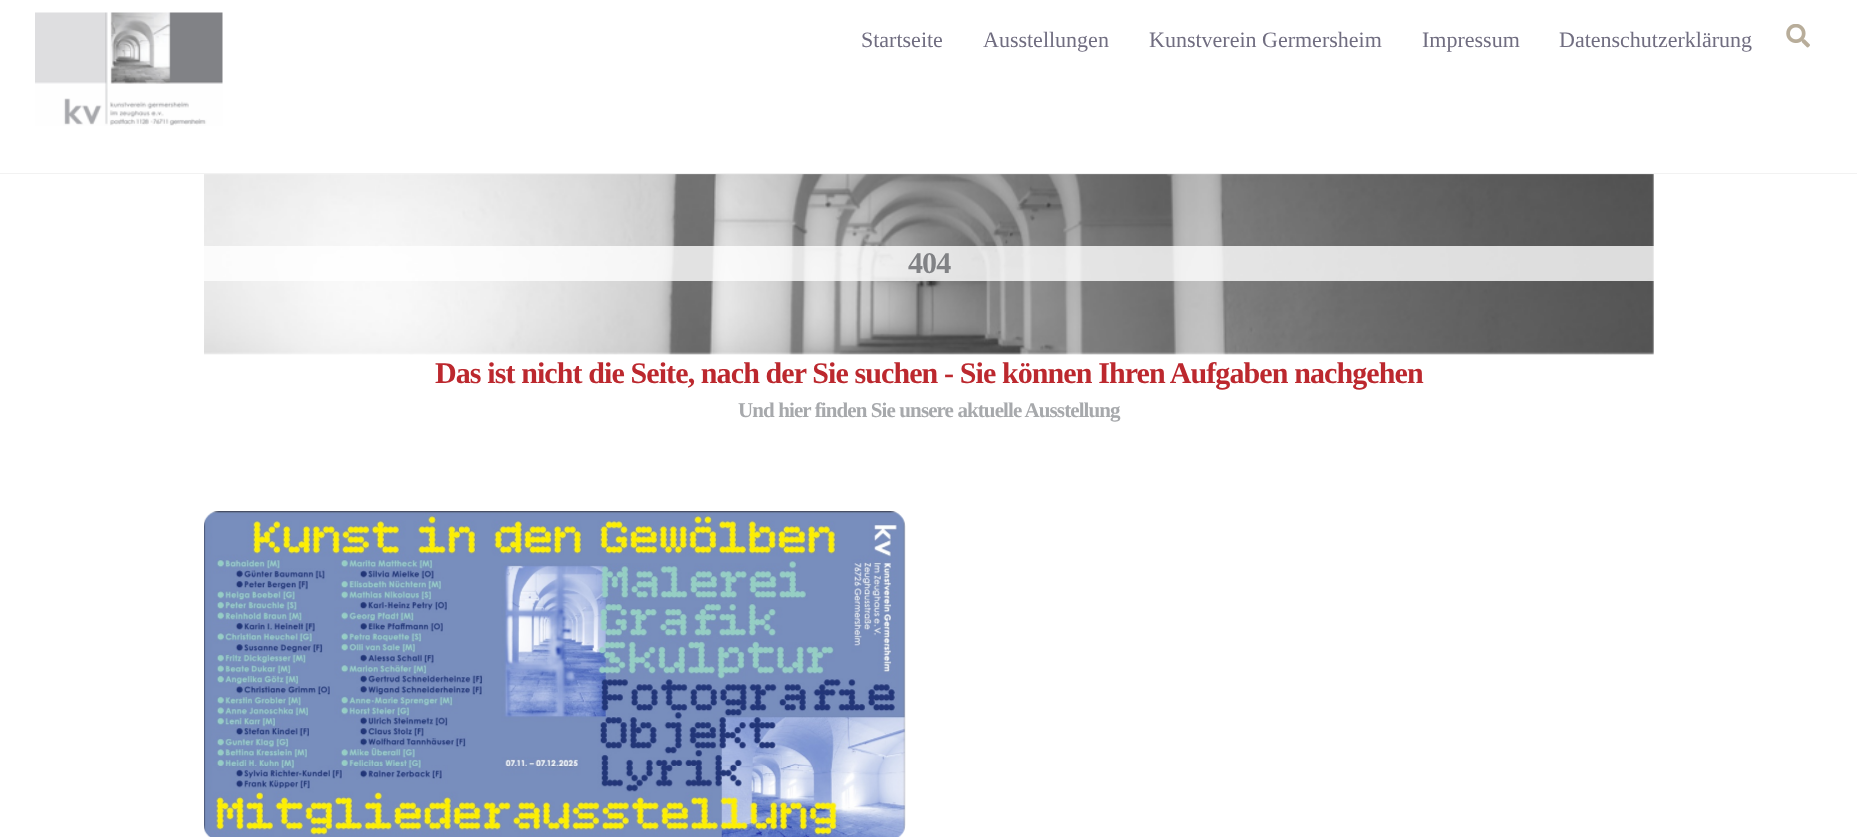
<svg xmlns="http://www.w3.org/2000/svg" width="1857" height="837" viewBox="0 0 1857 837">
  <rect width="100%" height="100%" fill="rgb(255,255,255)"/>
  <rect x="0" y="173" width="1857" height="1" fill="rgb(242,242,242)"/>
  <image x="35" y="12" width="188" height="114" href="pic1.png"/>
  <g font-family="Liberation Serif" font-size="22" fill="rgb(112,109,128)">
    <text x="861" y="47">Startseite</text>
    <text x="983" y="47">Ausstellungen</text>
    <text x="1149" y="47">Kunstverein Germersheim</text>
    <text x="1422" y="47">Impressum</text>
    <text x="1559" y="47">Datenschutzerklärung</text>
  </g>
  <image x="1786" y="24" width="24" height="24" href="pic2.png"/>
  <image x="204" y="174" width="1450" height="181" href="pic3.png"/>
  <rect x="204" y="246" width="1450" height="35" fill="rgba(255,255,255,0.8)"/>
  <text x="908" y="273" font-family="Liberation Serif" font-size="30" font-weight="bold" letter-spacing="-0.9" fill="rgb(129,130,133)">404</text>
  <text x="435" y="383" font-family="Liberation Serif" font-size="30" font-weight="bold" letter-spacing="-0.9" fill="rgb(188,40,46)">Das ist nicht die Seite, nach der Sie suchen - Sie können Ihren Aufgaben nachgehen</text>
  <text x="738" y="417" font-family="Liberation Serif" font-size="21" font-weight="bold" letter-spacing="-0.9" fill="rgb(167,169,172)">Und hier finden Sie unsere aktuelle Ausstellung</text>
  <image x="204" y="511" width="702" height="326" href="pic4.png"/>
</svg>
